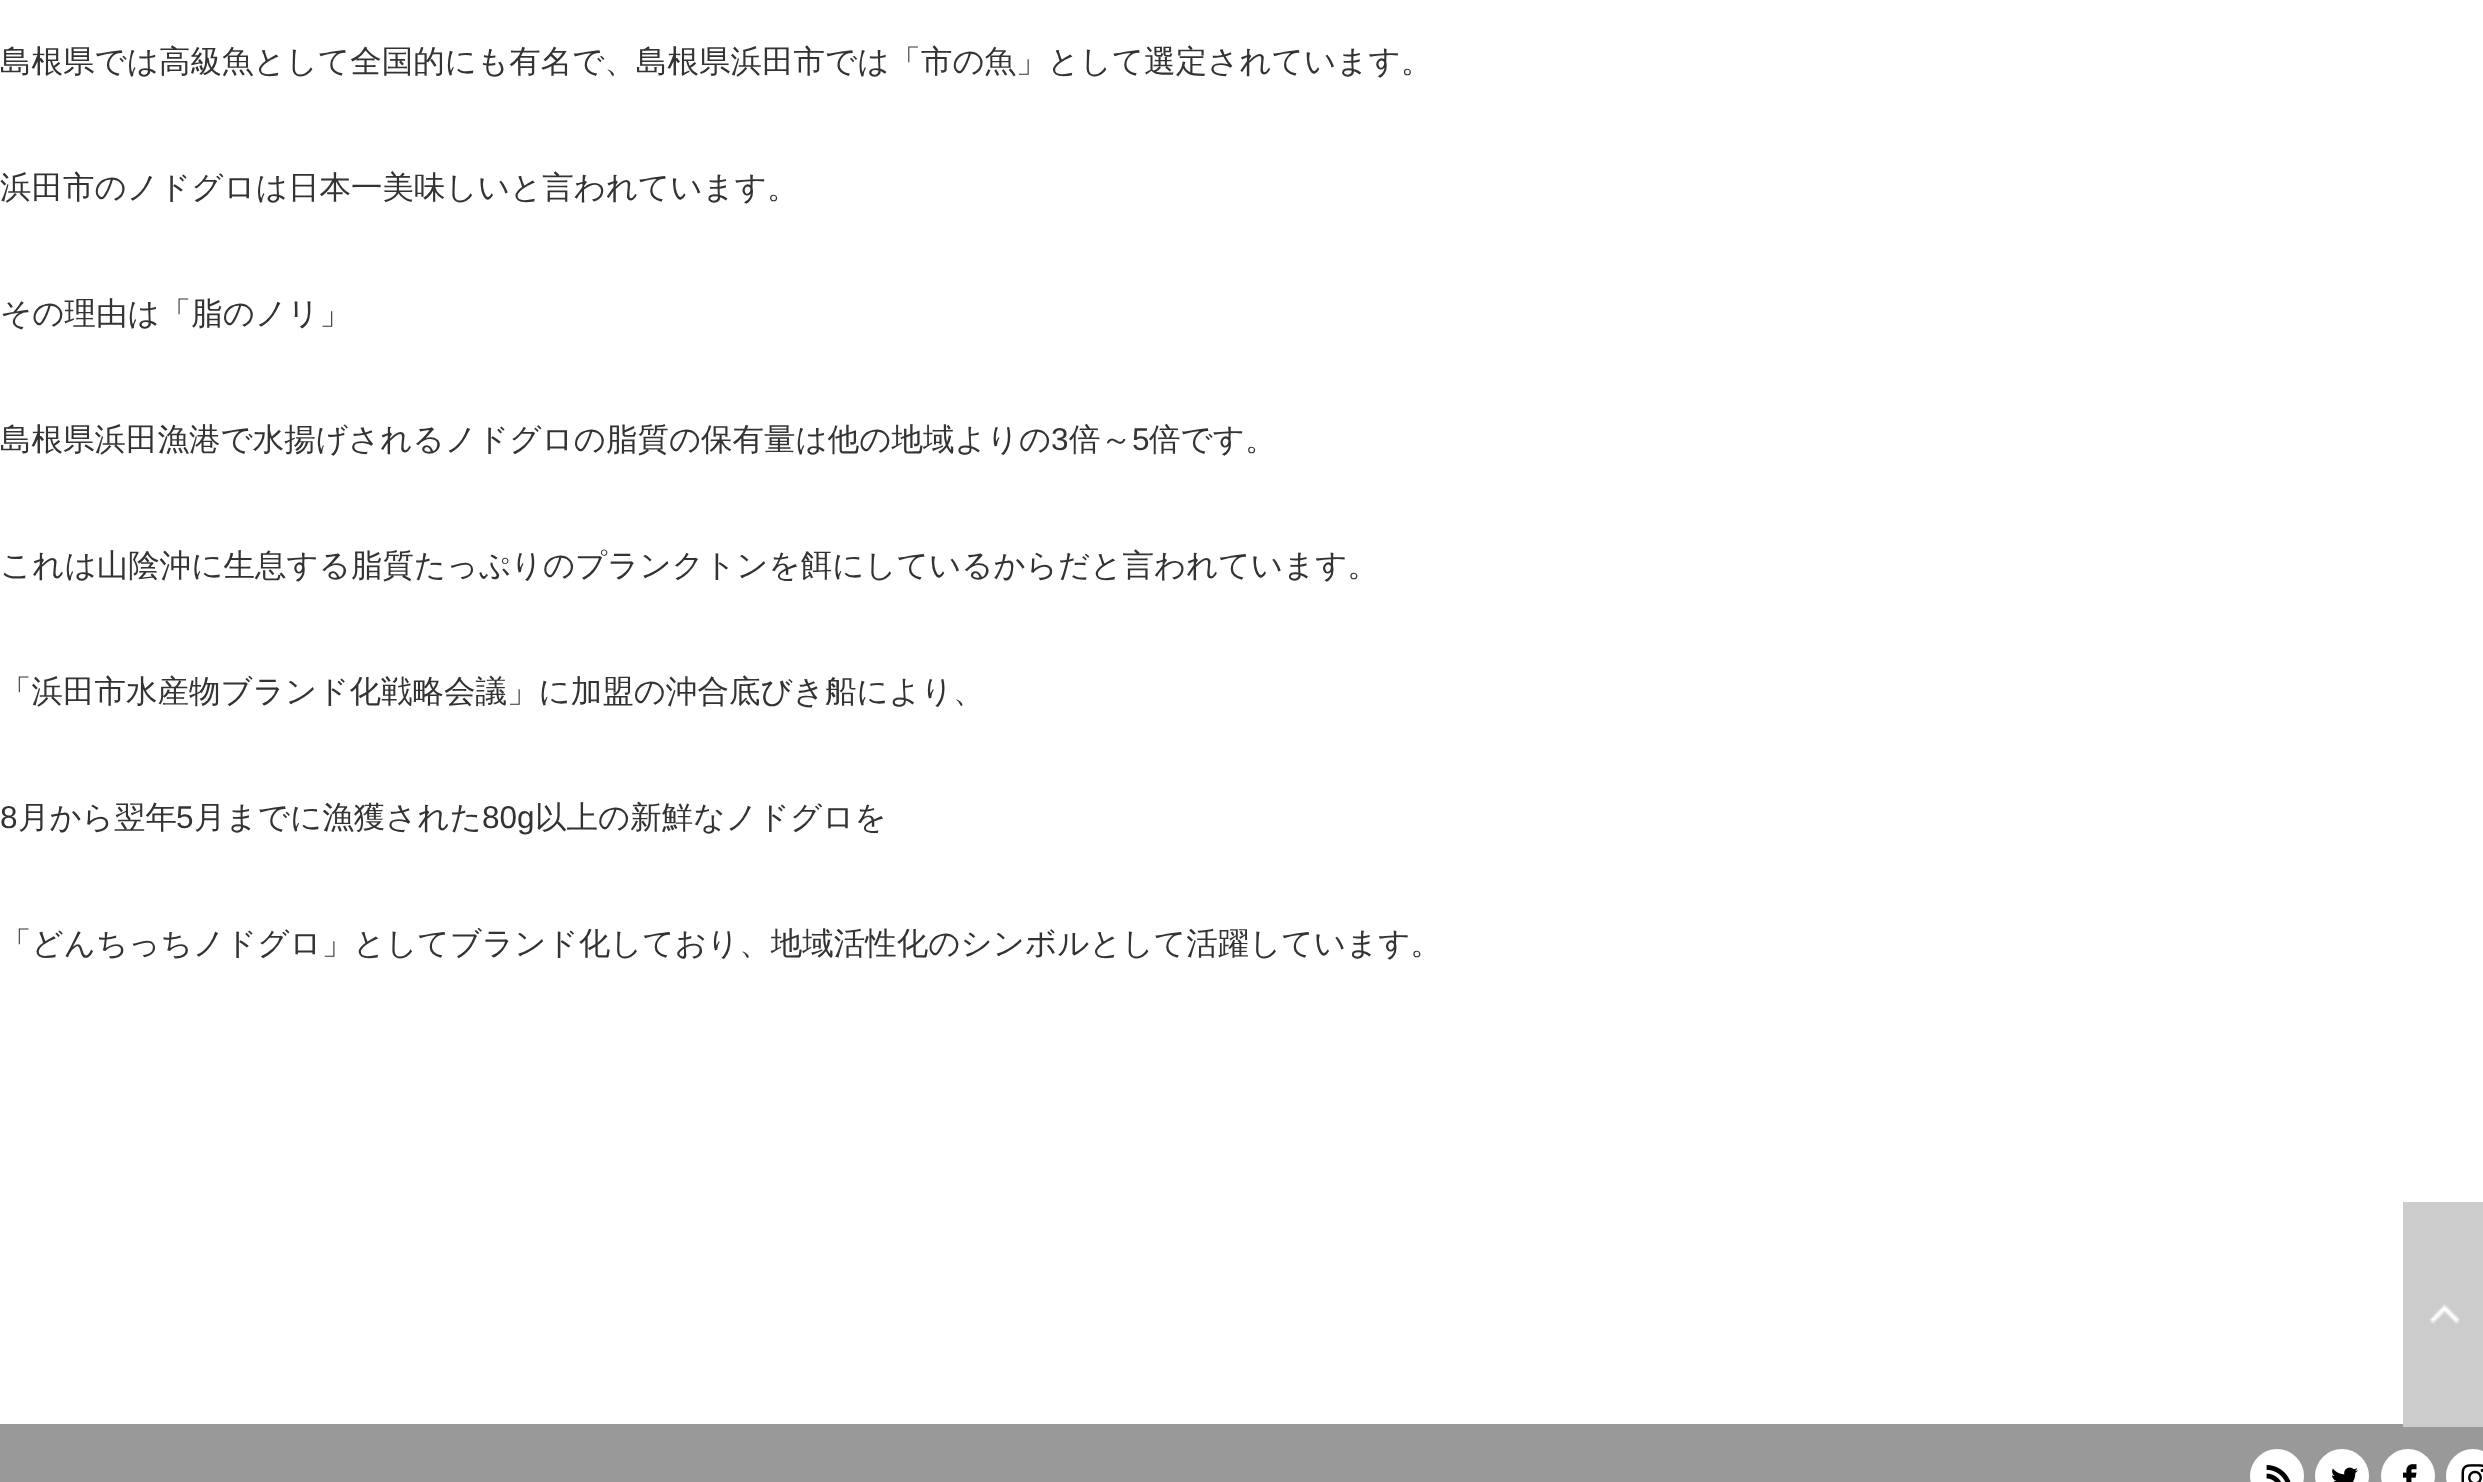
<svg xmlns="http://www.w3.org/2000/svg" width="2483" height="1482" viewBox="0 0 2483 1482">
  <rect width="100%" height="100%" fill="rgb(255,255,255)"/>
  <g font-family="WenQuanYi Zen Hei" font-size="31.5" font-weight="500" fill="rgb(51,51,51)">
    <text x="0" y="72">島根県では高級魚として全国的にも有名で、島根県浜田市では「市の魚」として選定されています。</text>
    <text x="0" y="198">浜田市のノドグロは日本一美味しいと言われています。</text>
    <text x="0" y="324">その理由は「脂のノリ」</text>
    <text x="0" y="450">島根県浜田漁港で水揚げされるノドグロの脂質の保有量は他の地域よりの</text>
  </g>
  <text x="1051" y="450" font-family="Liberation Sans" font-size="31.5" fill="rgb(51,51,51)">3</text>
  <text x="1069" y="450" font-family="WenQuanYi Zen Hei" font-size="31.5" font-weight="500" fill="rgb(51,51,51)">倍～</text>
  <text x="1132" y="450" font-family="Liberation Sans" font-size="31.5" fill="rgb(51,51,51)">5</text>
  <g font-family="WenQuanYi Zen Hei" font-size="31.5" font-weight="500" fill="rgb(51,51,51)">
    <text x="1149" y="450">倍です。</text>
    <text x="0" y="576">これは山陰沖に生息する脂質たっぷりのプランクトンを餌にしているからだと言われています。</text>
    <text x="0" y="702">「浜田市水産物ブランド化戦略会議」に加盟の沖合底びき船により、</text>
  </g>
  <text x="0" y="828" font-family="Liberation Sans" font-size="31.5" fill="rgb(51,51,51)">8</text>
  <text x="18" y="828" font-family="WenQuanYi Zen Hei" font-size="31.5" font-weight="500" fill="rgb(51,51,51)">月から翌年</text>
  <text x="176" y="828" font-family="Liberation Sans" font-size="31.5" fill="rgb(51,51,51)">5</text>
  <text x="194" y="828" font-family="WenQuanYi Zen Hei" font-size="31.5" font-weight="500" fill="rgb(51,51,51)">月までに漁獲された</text>
  <text x="482" y="828" font-family="Liberation Sans" font-size="31.5" fill="rgb(51,51,51)">80g</text>
  <g font-family="WenQuanYi Zen Hei" font-size="31.5" font-weight="500" fill="rgb(51,51,51)">
    <text x="535" y="828">以上の新鮮なノドグロを</text>
    <text x="0" y="954">「どんちっちノドグロ」としてブランド化しており、地域活性化のシンボルとして活躍しています。</text>
  </g>
  <rect x="0" y="1424" width="2483" height="58" fill="rgb(153,153,153)"/>
  <rect x="2403" y="1202" width="80" height="225" fill="rgb(204,204,204)"/>
  <image x="2429" y="1304" width="31" height="20" href="pic1.png"/>
  <circle cx="2277" cy="1476" r="27" fill="rgb(255,255,255)"/>
  <image x="2266" y="1465" width="25" height="17" href="pic2.png"/>
  <circle cx="2342" cy="1476" r="27" fill="rgb(255,255,255)"/>
  <image x="2332" y="1467" width="26" height="15" href="pic3.png"/>
  <circle cx="2408" cy="1476" r="27" fill="rgb(255,255,255)"/>
  <image x="2403" y="1464" width="14" height="18" href="pic4.png"/>
  <circle cx="2473" cy="1476" r="27" fill="rgb(255,255,255)"/>
  <image x="2461" y="1464" width="22" height="18" href="pic5.png"/>
</svg>
